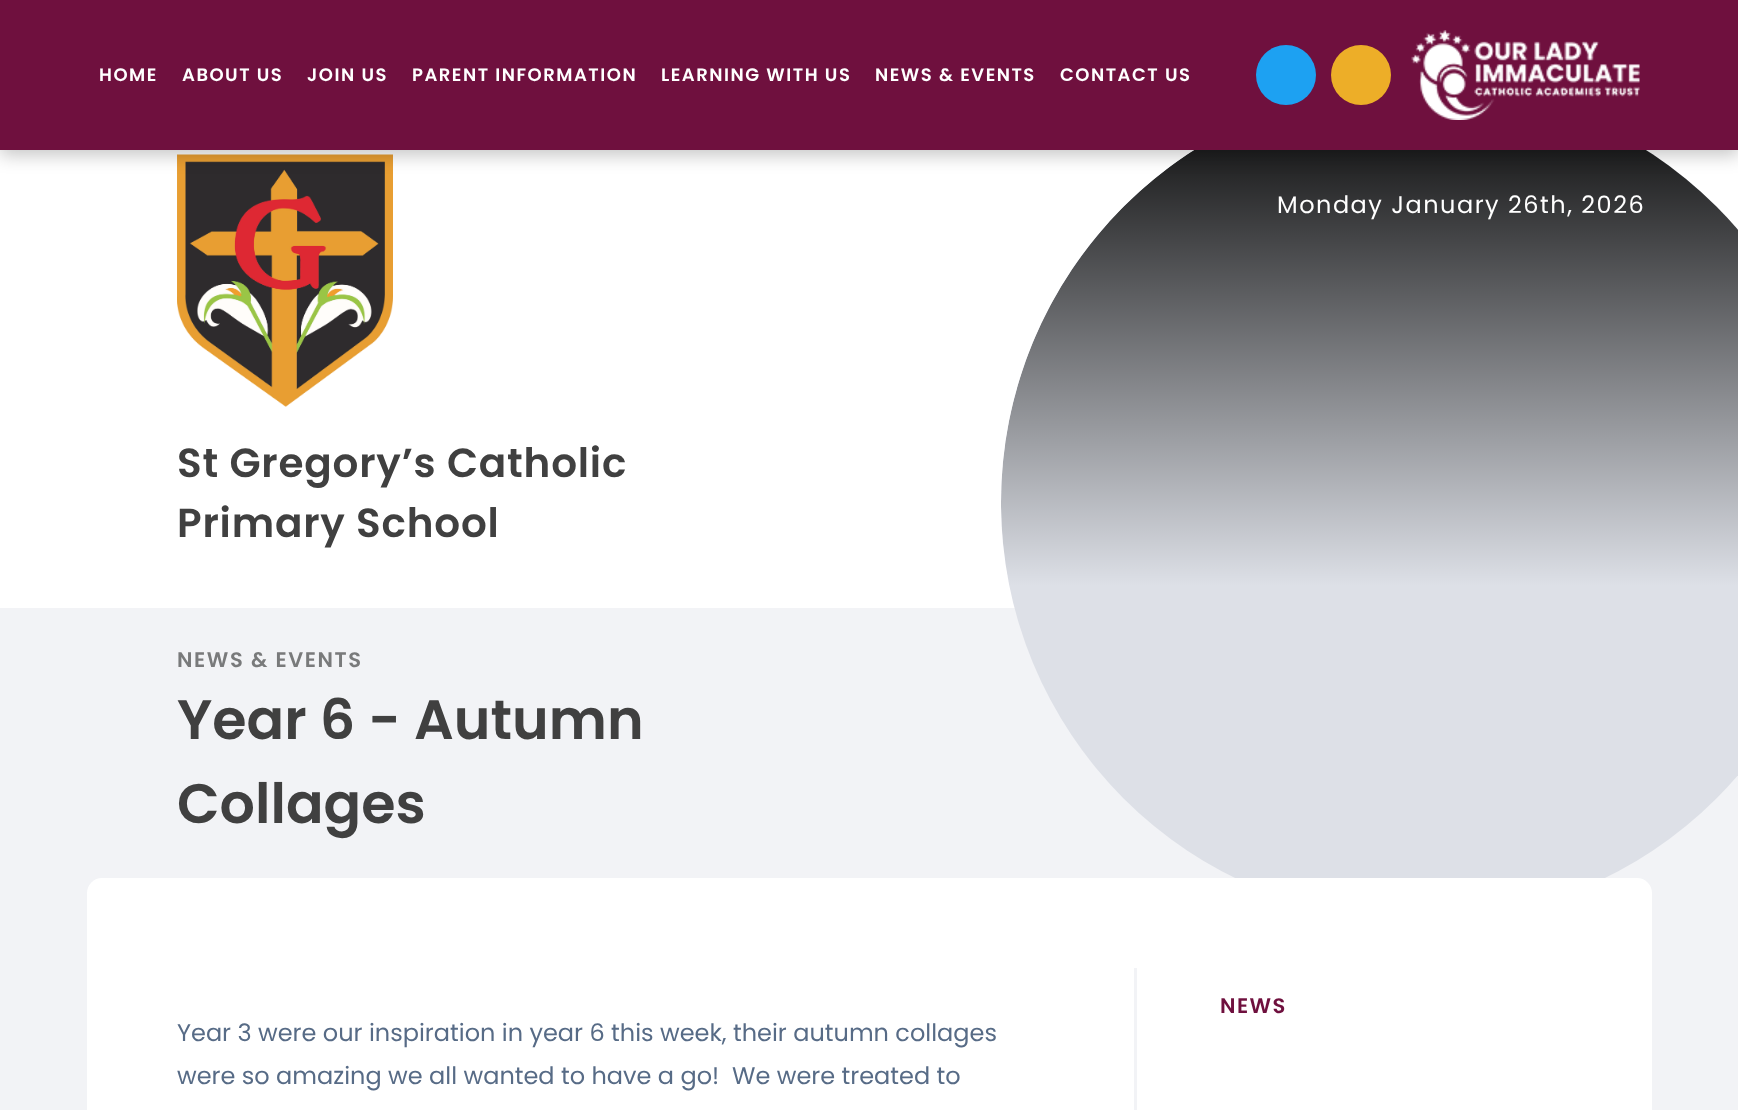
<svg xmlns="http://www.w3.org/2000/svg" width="1738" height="1110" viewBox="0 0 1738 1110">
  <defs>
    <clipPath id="clip1"><rect x="1001" y="84" width="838" height="837" rx="418.5"/></clipPath>
    <linearGradient id="g1" gradientUnits="userSpaceOnUse" x1="1420" y1="84" x2="1420" y2="921"><stop offset="0" stop-color="rgb(0,0,0)"/><stop offset="0.6" stop-color="rgb(0,0,0)" stop-opacity="0"/><stop offset="1" stop-color="rgb(0,0,0)" stop-opacity="0"/></linearGradient>
  </defs>
  <rect width="100%" height="100%" fill="rgb(255,255,255)"/>
  <image x="177" y="154" width="216" height="253" href="pic2.png"/>
  <rect x="0" y="608" width="1738" height="502" fill="rgb(242,243,246)"/>
  <rect x="1001" y="84" width="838" height="837" rx="418.5" fill="rgb(221,224,231)"/>
  <g clip-path="url(#clip1)">
    <path d="M1419.5 84H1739V921H1419.5C1188.5 921 1001 733.5 1001 502.5C1001 271.5 1188.5 84 1419.5 84Z" fill="url(#g1)"/>
  </g>
  <rect x="0" y="5" width="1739" height="150" fill="rgba(0,0,0,0.23)" filter="blur(9px)"/>
  <rect x="0" y="0" width="1738" height="150" fill="rgb(111,16,62)"/>
  <g font-family="Poppins" font-size="18" font-weight="600" letter-spacing="1.5" fill="rgb(255,255,255)">
    <text x="99" y="81">HOME</text>
    <text x="182" y="81">ABOUT US</text>
    <text x="307" y="81">JOIN US</text>
    <text x="412" y="81">PARENT INFORMATION</text>
    <text x="661" y="81">LEARNING WITH US</text>
    <text x="875" y="81">NEWS &amp; EVENTS</text>
    <text x="1060" y="81">CONTACT US</text>
  </g>
  <circle cx="1286" cy="75" r="30" fill="rgb(29,161,242)"/>
  <circle cx="1361" cy="75" r="30" fill="rgb(237,174,40)"/>
  <image x="1411" y="30" width="229" height="90" href="pic1.png"/>
  <text x="1277" y="213" font-family="Poppins" font-size="24" letter-spacing="1.5" fill="rgb(255,255,255)">Monday January 26th, 2026</text>
  <g font-family="Poppins" font-size="40.5" font-weight="600" letter-spacing="0.8" fill="rgb(64,64,64)">
    <text>
      <tspan x="177" y="477">St Gregory’s Catholic</tspan>
      <tspan x="177" y="537">Primary School</tspan>
    </text>
  </g>
  <text x="177" y="667" font-family="Poppins" font-size="21" font-weight="600" letter-spacing="1.6" fill="rgb(121,122,123)">NEWS &amp; EVENTS</text>
  <g font-family="Poppins" font-size="55.5" font-weight="600" fill="rgb(64,64,64)">
    <text>
      <tspan x="177" y="739">Year 6 - Autumn</tspan>
      <tspan x="177" y="823">Collages</tspan>
    </text>
  </g>
  <rect x="87" y="878" width="1565" height="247" rx="15" fill="rgb(255,255,255)"/>
  <rect x="1134" y="968" width="3" height="142" fill="rgb(242,243,246)"/>
  <text x="1220" y="1013" font-family="Poppins" font-size="21" font-weight="600" letter-spacing="1.5" fill="rgb(111,16,62)">NEWS</text>
  <g font-family="Poppins" font-size="24" fill="rgb(87,107,134)">
    <text xml:space="preserve"><tspan x="177" y="1041">Year 3 were our inspiration in year 6 this week, their autumn collages</tspan><tspan x="177" y="1084">were so amazing we all wanted to have a go!  We were treated to</tspan></text>
  </g>
</svg>
